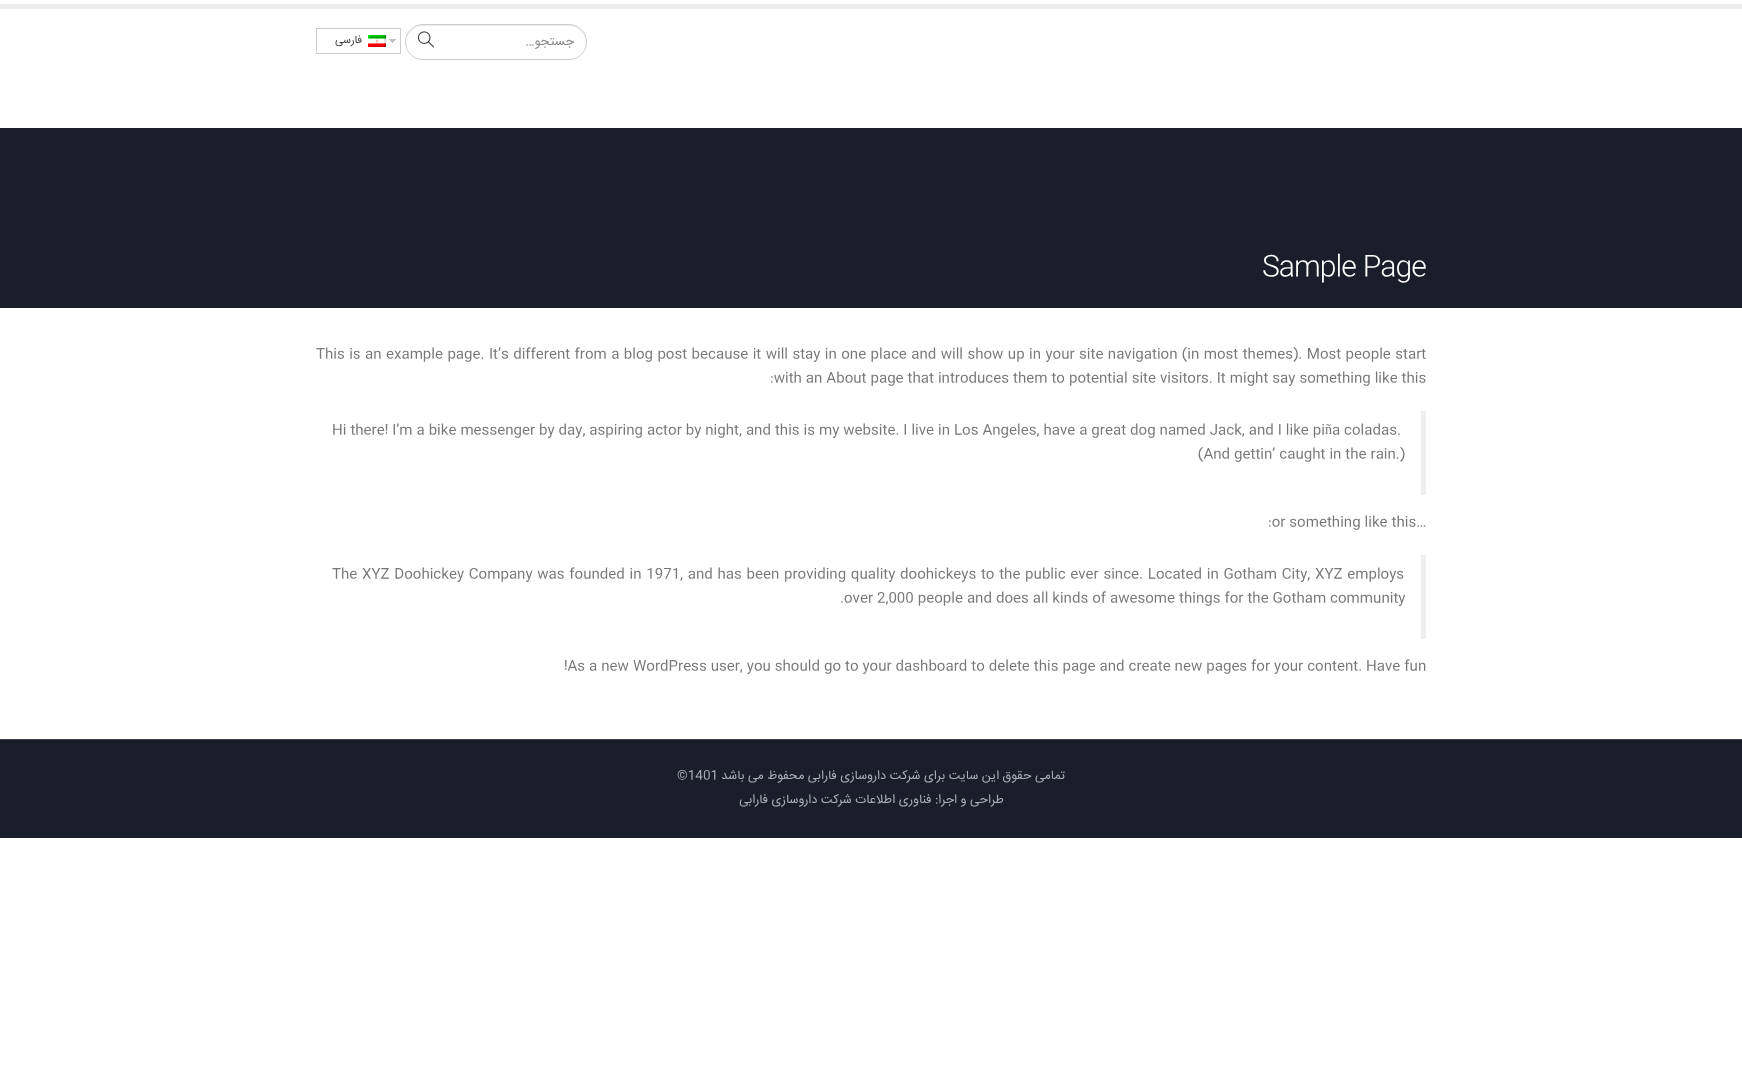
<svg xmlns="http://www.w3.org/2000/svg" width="1742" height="1076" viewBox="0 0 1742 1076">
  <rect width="100%" height="100%" fill="rgb(255,255,255)"/>
  <rect x="0" y="4" width="1742" height="5" fill="rgb(237,237,237)"/>
  <image x="389" y="39" width="7" height="4" href="pic1.png"/>
  <rect x="316.5" y="28.5" width="84" height="25" fill="none" stroke="rgb(205,205,205)"/>
  <text x="362" y="43" font-family="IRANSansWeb" font-size="11" direction="rtl" fill="rgb(68,68,68)">فارسی</text>
  <image x="368" y="35" width="18" height="12" href="pic2.png"/>
  <path d="M423 26H569C578 26 586 34 586 43V42C586 33 578 25 569 25H423C414 25 406 33 406 42V43C406 34 414 26 423 26Z" fill="rgb(236,236,236)"/>
  <rect x="405.5" y="24.5" width="181" height="35" rx="17.5" fill="none" stroke="rgb(204,204,204)"/>
  <image x="418" y="31" width="16" height="17" href="pic3.png"/>
  <text x="574" y="45" font-family="IRANSansWeb" font-size="13" direction="rtl" fill="rgb(136,136,136)">جستجو…</text>
  <rect x="0" y="128" width="1742" height="180" fill="rgb(26,30,42)"/>
  <text x="1262" y="275" font-family="IRANSansWeb" font-size="28" font-weight="200" letter-spacing="-1" fill="rgb(255,255,255)">Sample Page</text>
  <g font-family="IRANSansWeb" font-size="14" fill="rgb(119,119,119)">
    <text x="316" y="358" word-spacing="0.45">This is an example page. It’s different from a blog post because it will stay in one place and will show up in your site navigation (in most themes). Most people start</text>
    <text x="770" y="382">:with an About page that introduces them to potential site visitors. It might say something like this</text>
  </g>
  <rect x="1421" y="411" width="5" height="84" fill="rgb(238,238,238)"/>
  <g font-family="IRANSansWeb" font-size="14" fill="rgb(119,119,119)">
    <text x="332" y="434">Hi there! I’m a bike messenger by day, aspiring actor by night, and this is my website. I live in Los Angeles, have a great dog named Jack, and I like piña coladas.</text>
    <text x="1198" y="458">(And gettin’ caught in the rain.)</text>
    <text x="1268" y="526">:or something like this…</text>
  </g>
  <rect x="1421" y="555" width="5" height="84" fill="rgb(238,238,238)"/>
  <g font-family="IRANSansWeb" font-size="14" fill="rgb(119,119,119)">
    <text x="332" y="578" word-spacing="0.75">The XYZ Doohickey Company was founded in 1971, and has been providing quality doohickeys to the public ever since. Located in Gotham City, XYZ employs</text>
    <text x="840" y="602">.over 2,000 people and does all kinds of awesome things for the Gotham community</text>
    <text x="564" y="670">!As a new WordPress user, you should go to your dashboard to delete this page and create new pages for your content. Have fun</text>
  </g>
  <rect x="0" y="740" width="1742" height="98" fill="rgb(26,30,42)"/>
  <rect x="0" y="739" width="1742" height="1" fill="rgb(60,62,73)"/>
  <text x="677" y="779" font-family="IRANSansWeb" font-size="12.6" fill="rgb(168,177,184)">©1401</text>
  <g font-family="IRANSansWeb" font-size="12.6" direction="rtl" fill="rgb(168,177,184)">
    <text x="1065" y="779">تمامی حقوق این سایت برای شرکت داروسازی فارابی محفوظ می باشد</text>
    <text x="1004" y="803">طراحی و اجرا: فناوری اطلاعات شرکت داروسازی فارابی</text>
  </g>
</svg>
